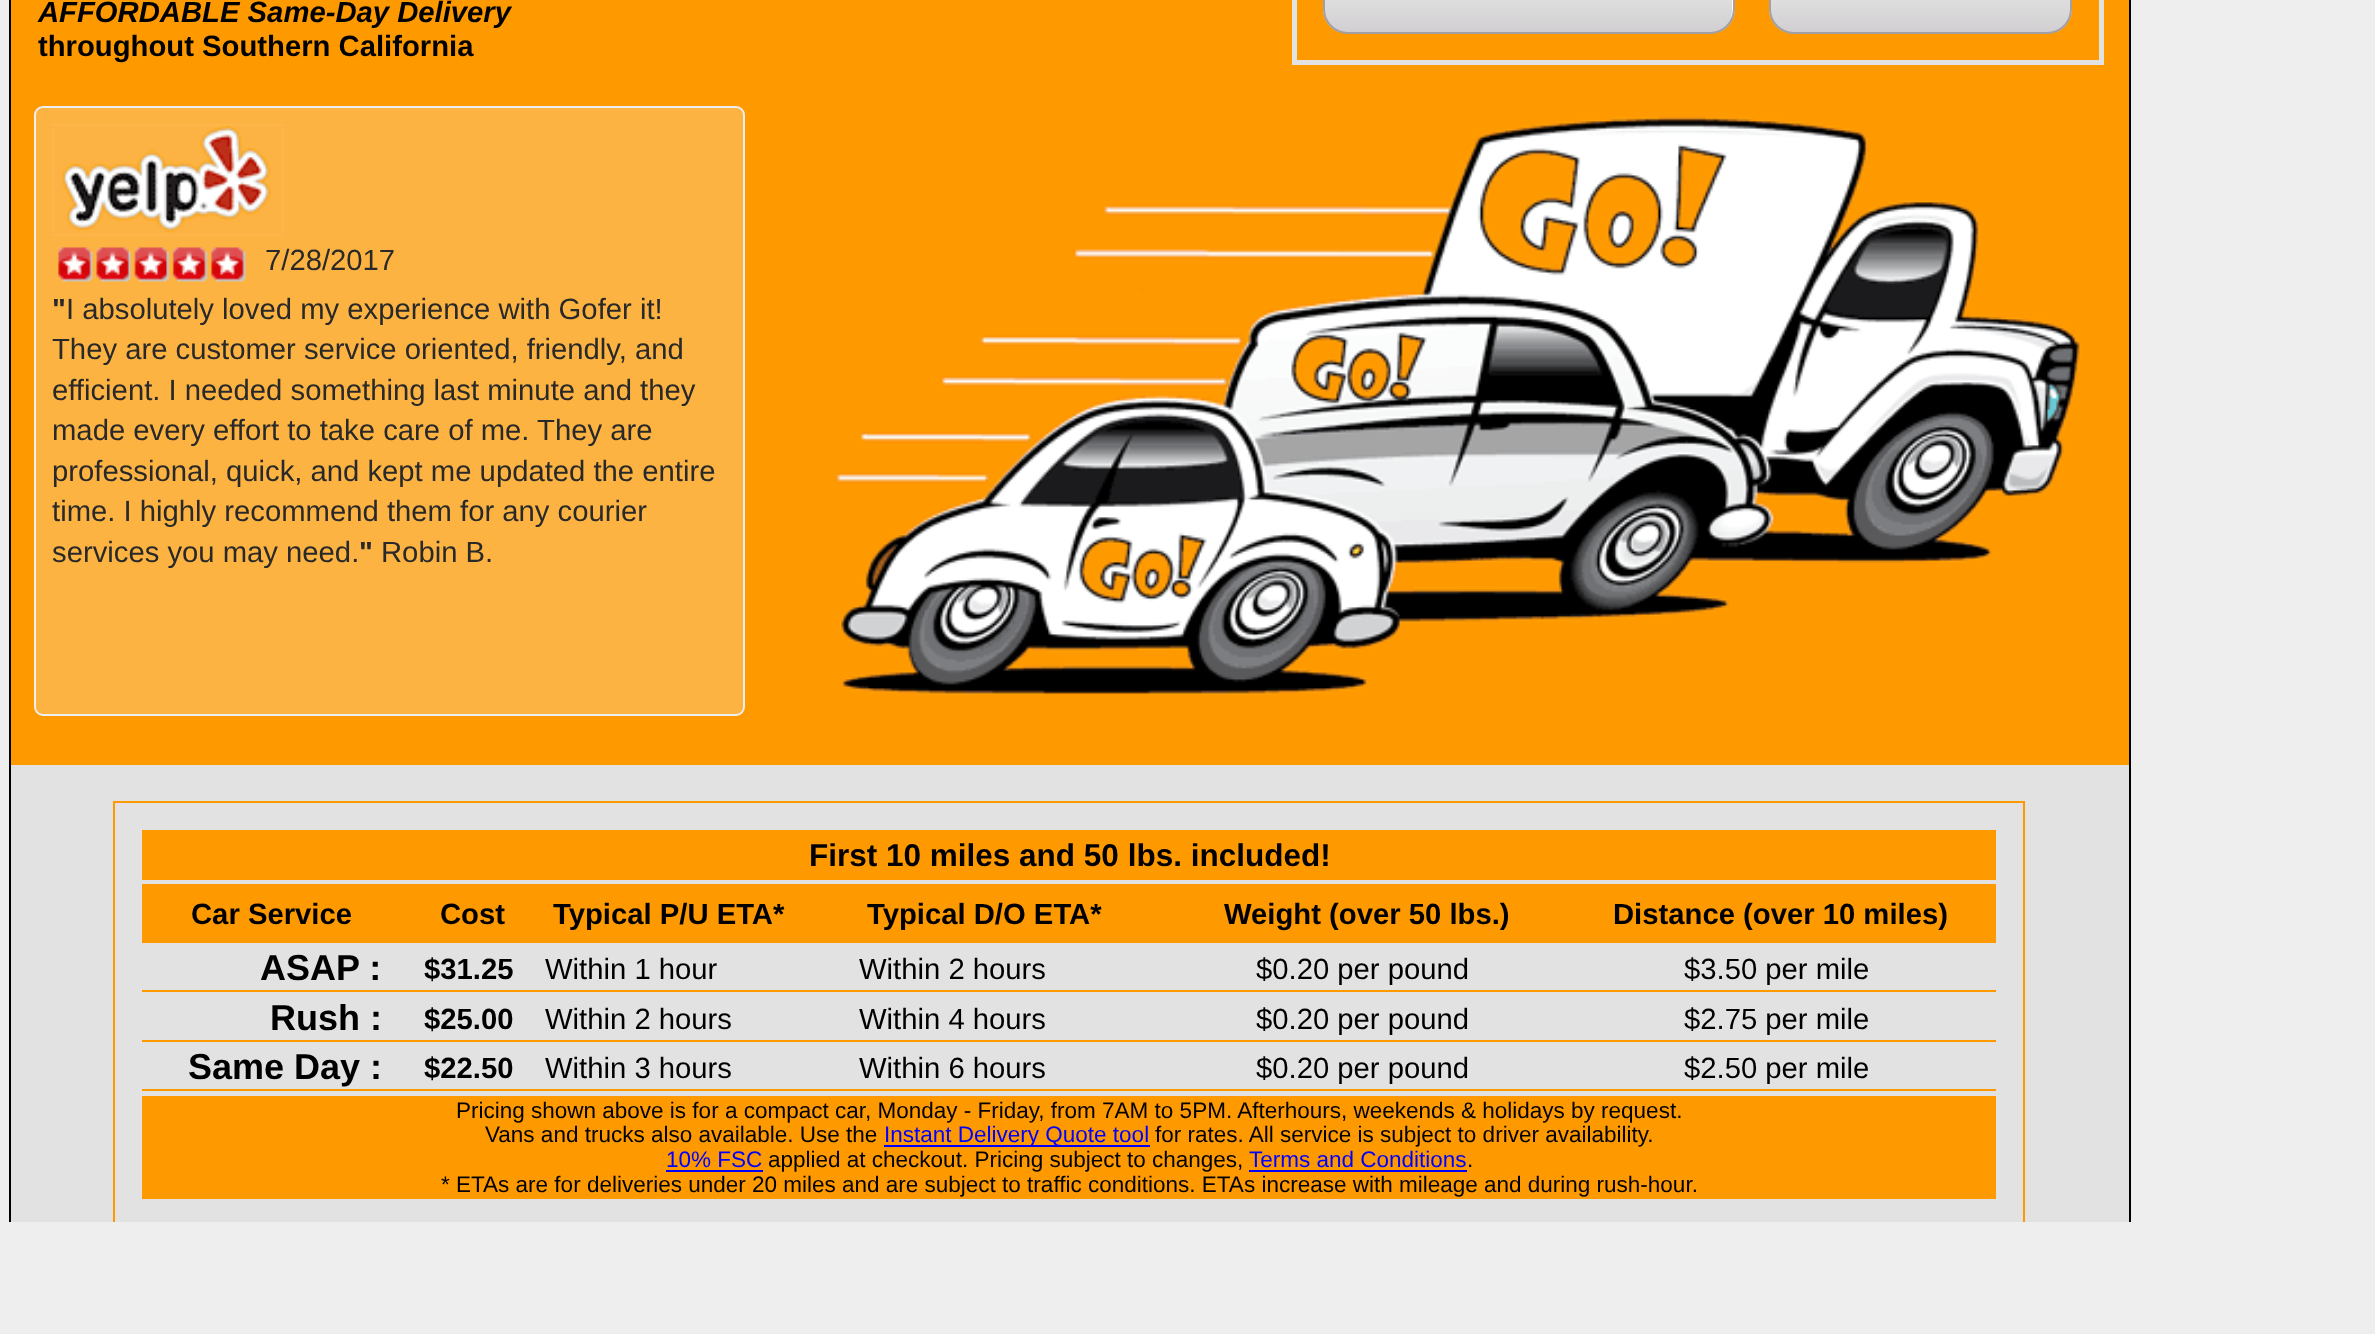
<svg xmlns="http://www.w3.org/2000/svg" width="2375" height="1334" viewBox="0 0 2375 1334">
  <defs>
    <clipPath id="clip1"><rect x="1323" y="-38" width="412" height="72" rx="25"/></clipPath>
    <linearGradient id="g1" gradientUnits="userSpaceOnUse" x1="1325" y1="-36" x2="1325" y2="32"><stop offset="0.05" stop-color="rgb(237,237,237)"/><stop offset="1" stop-color="rgb(209,207,209)"/></linearGradient>
    <clipPath id="clip2"><rect x="1769" y="-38" width="303" height="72" rx="25"/></clipPath>
    <linearGradient id="g2" gradientUnits="userSpaceOnUse" x1="1771" y1="-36" x2="1771" y2="32"><stop offset="0.05" stop-color="rgb(237,237,237)"/><stop offset="1" stop-color="rgb(209,207,209)"/></linearGradient>
  </defs>
  <rect width="100%" height="100%" fill="rgb(238,238,238)"/>
  <rect x="11" y="0" width="2118" height="765" fill="rgb(255,153,0)"/>
  <rect x="2129" y="0" width="2" height="1222" fill="rgb(0,0,0)"/>
  <rect x="9" y="0" width="2" height="1222" fill="rgb(0,0,0)"/>
  <text x="38" y="22" font-family="Liberation Sans" font-size="29.25" font-weight="bold" font-style="italic" fill="rgb(0,0,0)">AFFORDABLE Same-Day Delivery</text>
  <text x="38" y="56" font-family="Liberation Sans" font-size="29.25" font-weight="bold" fill="rgb(0,0,0)">throughout Southern California</text>
  <rect x="1294.5" y="-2.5" width="807" height="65" fill="none" stroke="rgb(226,226,226)" stroke-width="5"/>
  <g clip-path="url(#clip1)">
    <rect x="1323" y="0" width="412" height="32" fill="url(#g1)"/>
  </g>
  <path d="M1348-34H1710C1722-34 1732-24 1732-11V11C1732 14 1731 17 1730 19C1732 16 1733 13 1733 9V-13C1733-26 1723-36 1710-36H1348C1335-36 1325-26 1325-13V-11C1325-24 1335-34 1348-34Z" fill="rgb(255,255,255)"/>
  <rect x="1324" y="-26" width="410" height="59" rx="24" fill="none" stroke="rgb(163,160,163)" stroke-width="2"/>
  <g clip-path="url(#clip2)">
    <rect x="1769" y="0" width="303" height="32" fill="url(#g2)"/>
  </g>
  <rect x="1770" y="-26" width="301" height="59" rx="24" fill="none" stroke="rgb(163,160,163)" stroke-width="2"/>
  <rect x="35" y="107" width="709" height="608" rx="8" fill="rgb(253,179,66)" stroke="rgb(238,238,238)" stroke-width="2"/>
  <image x="52" y="124" width="232" height="112" href="pic1.png"/>
  <image x="58" y="247" width="188" height="35" href="pic2.png"/>
  <text x="265" y="270" font-family="Liberation Sans" font-size="29.25" fill="rgb(41,41,41)">7/28/2017</text>
  <text x="52" y="319" font-family="Liberation Sans" font-size="29.25" font-weight="bold" fill="rgb(41,41,41)">"</text>
  <g font-family="Liberation Sans" font-size="29.25" fill="rgb(41,41,41)">
    <text x="66" y="319">I absolutely loved my experience with Gofer it!</text>
    <text>
      <tspan x="52" y="359">They are customer service oriented, friendly, and</tspan>
      <tspan x="52" y="400">efficient. I needed something last minute and they</tspan>
      <tspan x="52" y="440">made every effort to take care of me. They are</tspan>
      <tspan x="52" y="481">professional, quick, and kept me updated the entire</tspan>
      <tspan x="52" y="521">time. I highly recommend them for any courier</tspan>
      <tspan x="52" y="562">services you may need.</tspan>
    </text>
  </g>
  <text x="359" y="562" font-family="Liberation Sans" font-size="29.25" font-weight="bold" fill="rgb(41,41,41)">"</text>
  <text x="381" y="562" font-family="Liberation Sans" font-size="29.25" fill="rgb(41,41,41)">Robin B.</text>
  <image x="835" y="116" width="1246" height="579" href="pic3.png"/>
  <rect x="11" y="765" width="2118" height="457" fill="rgb(226,226,226)"/>
  <rect x="114" y="802" width="1910" height="426" fill="none" stroke="rgb(255,153,0)" stroke-width="2"/>
  <rect x="142" y="830" width="1854" height="50" fill="rgb(255,153,0)"/>
  <text x="809" y="866" font-family="Liberation Sans" font-size="31.5" font-weight="bold" fill="rgb(0,0,0)">First 10 miles and 50 lbs. included!</text>
  <rect x="142" y="884" width="1854" height="59" fill="rgb(255,153,0)"/>
  <g font-family="Liberation Sans" font-size="29.25" font-weight="bold" fill="rgb(0,0,0)">
    <text x="191" y="924">Car Service</text>
    <text x="440" y="924">Cost</text>
    <text x="553" y="924">Typical P/U ETA*</text>
    <text x="867" y="924">Typical D/O ETA*</text>
    <text x="1224" y="924">Weight (over 50 lbs.)</text>
    <text x="1613" y="924">Distance (over 10 miles)</text>
  </g>
  <rect x="142" y="990" width="1854" height="2" fill="rgb(255,153,0)"/>
  <text x="260" y="980" font-family="Liberation Sans" font-size="36" font-weight="bold" fill="rgb(0,0,0)">ASAP :</text>
  <text x="424" y="979" font-family="Liberation Sans" font-size="29.25" font-weight="bold" fill="rgb(0,0,0)">$31.25</text>
  <g font-family="Liberation Sans" font-size="29.25" fill="rgb(0,0,0)">
    <text x="545" y="979">Within 1 hour</text>
    <text x="859" y="979">Within 2 hours</text>
    <text x="1256" y="979">$0.20 per pound</text>
    <text x="1684" y="979">$3.50 per mile</text>
  </g>
  <rect x="142" y="1040" width="1854" height="2" fill="rgb(255,153,0)"/>
  <text x="270" y="1030" font-family="Liberation Sans" font-size="36" font-weight="bold" fill="rgb(0,0,0)">Rush :</text>
  <text x="424" y="1029" font-family="Liberation Sans" font-size="29.25" font-weight="bold" fill="rgb(0,0,0)">$25.00</text>
  <g font-family="Liberation Sans" font-size="29.25" fill="rgb(0,0,0)">
    <text x="545" y="1029">Within 2 hours</text>
    <text x="859" y="1029">Within 4 hours</text>
    <text x="1256" y="1029">$0.20 per pound</text>
    <text x="1684" y="1029">$2.75 per mile</text>
  </g>
  <rect x="142" y="1089" width="1854" height="2" fill="rgb(255,153,0)"/>
  <text x="188" y="1079" font-family="Liberation Sans" font-size="36" font-weight="bold" fill="rgb(0,0,0)">Same Day :</text>
  <text x="424" y="1078" font-family="Liberation Sans" font-size="29.25" font-weight="bold" fill="rgb(0,0,0)">$22.50</text>
  <g font-family="Liberation Sans" font-size="29.25" fill="rgb(0,0,0)">
    <text x="545" y="1078">Within 3 hours</text>
    <text x="859" y="1078">Within 6 hours</text>
    <text x="1256" y="1078">$0.20 per pound</text>
    <text x="1684" y="1078">$2.50 per mile</text>
  </g>
  <rect x="142" y="1096" width="1854" height="103" fill="rgb(255,153,0)"/>
  <g font-family="Liberation Sans" font-size="22.5" fill="rgb(0,0,0)">
    <text x="456" y="1118">Pricing shown above is for a compact car, Monday - Friday, from 7AM to 5PM. Afterhours, weekends &amp; holidays by request.</text>
    <text x="485" y="1142">Vans and trucks also available. Use the</text>
  </g>
  <rect x="884" y="1145" width="266" height="2" fill="rgb(0,0,255)"/>
  <text x="884" y="1142" font-family="Liberation Sans" font-size="22.5" fill="rgb(0,0,255)">Instant Delivery Quote tool</text>
  <text x="1155" y="1142" font-family="Liberation Sans" font-size="22.5" fill="rgb(0,0,0)">for rates. All service is subject to driver availability.</text>
  <text x="666" y="1167" font-family="Liberation Sans" font-size="22.5" fill="rgb(0,0,255)">10% FSC</text>
  <rect x="666" y="1170" width="97" height="2" fill="rgb(0,0,255)"/>
  <text x="768" y="1167" font-family="Liberation Sans" font-size="22.5" fill="rgb(0,0,0)">applied at checkout. Pricing subject to changes,</text>
  <text x="1249" y="1167" font-family="Liberation Sans" font-size="22.5" fill="rgb(0,0,255)">Terms and Conditions</text>
  <rect x="1249" y="1170" width="218" height="2" fill="rgb(0,0,255)"/>
  <g font-family="Liberation Sans" font-size="22.5" fill="rgb(0,0,0)">
    <text x="1467" y="1167">.</text>
    <text x="441" y="1192">* ETAs are for deliveries under 20 miles and are subject to traffic conditions. ETAs increase with mileage and during rush-hour.</text>
  </g>
  <rect x="113" y="1222" width="1912" height="7" fill="rgb(238,238,238)"/>
</svg>
